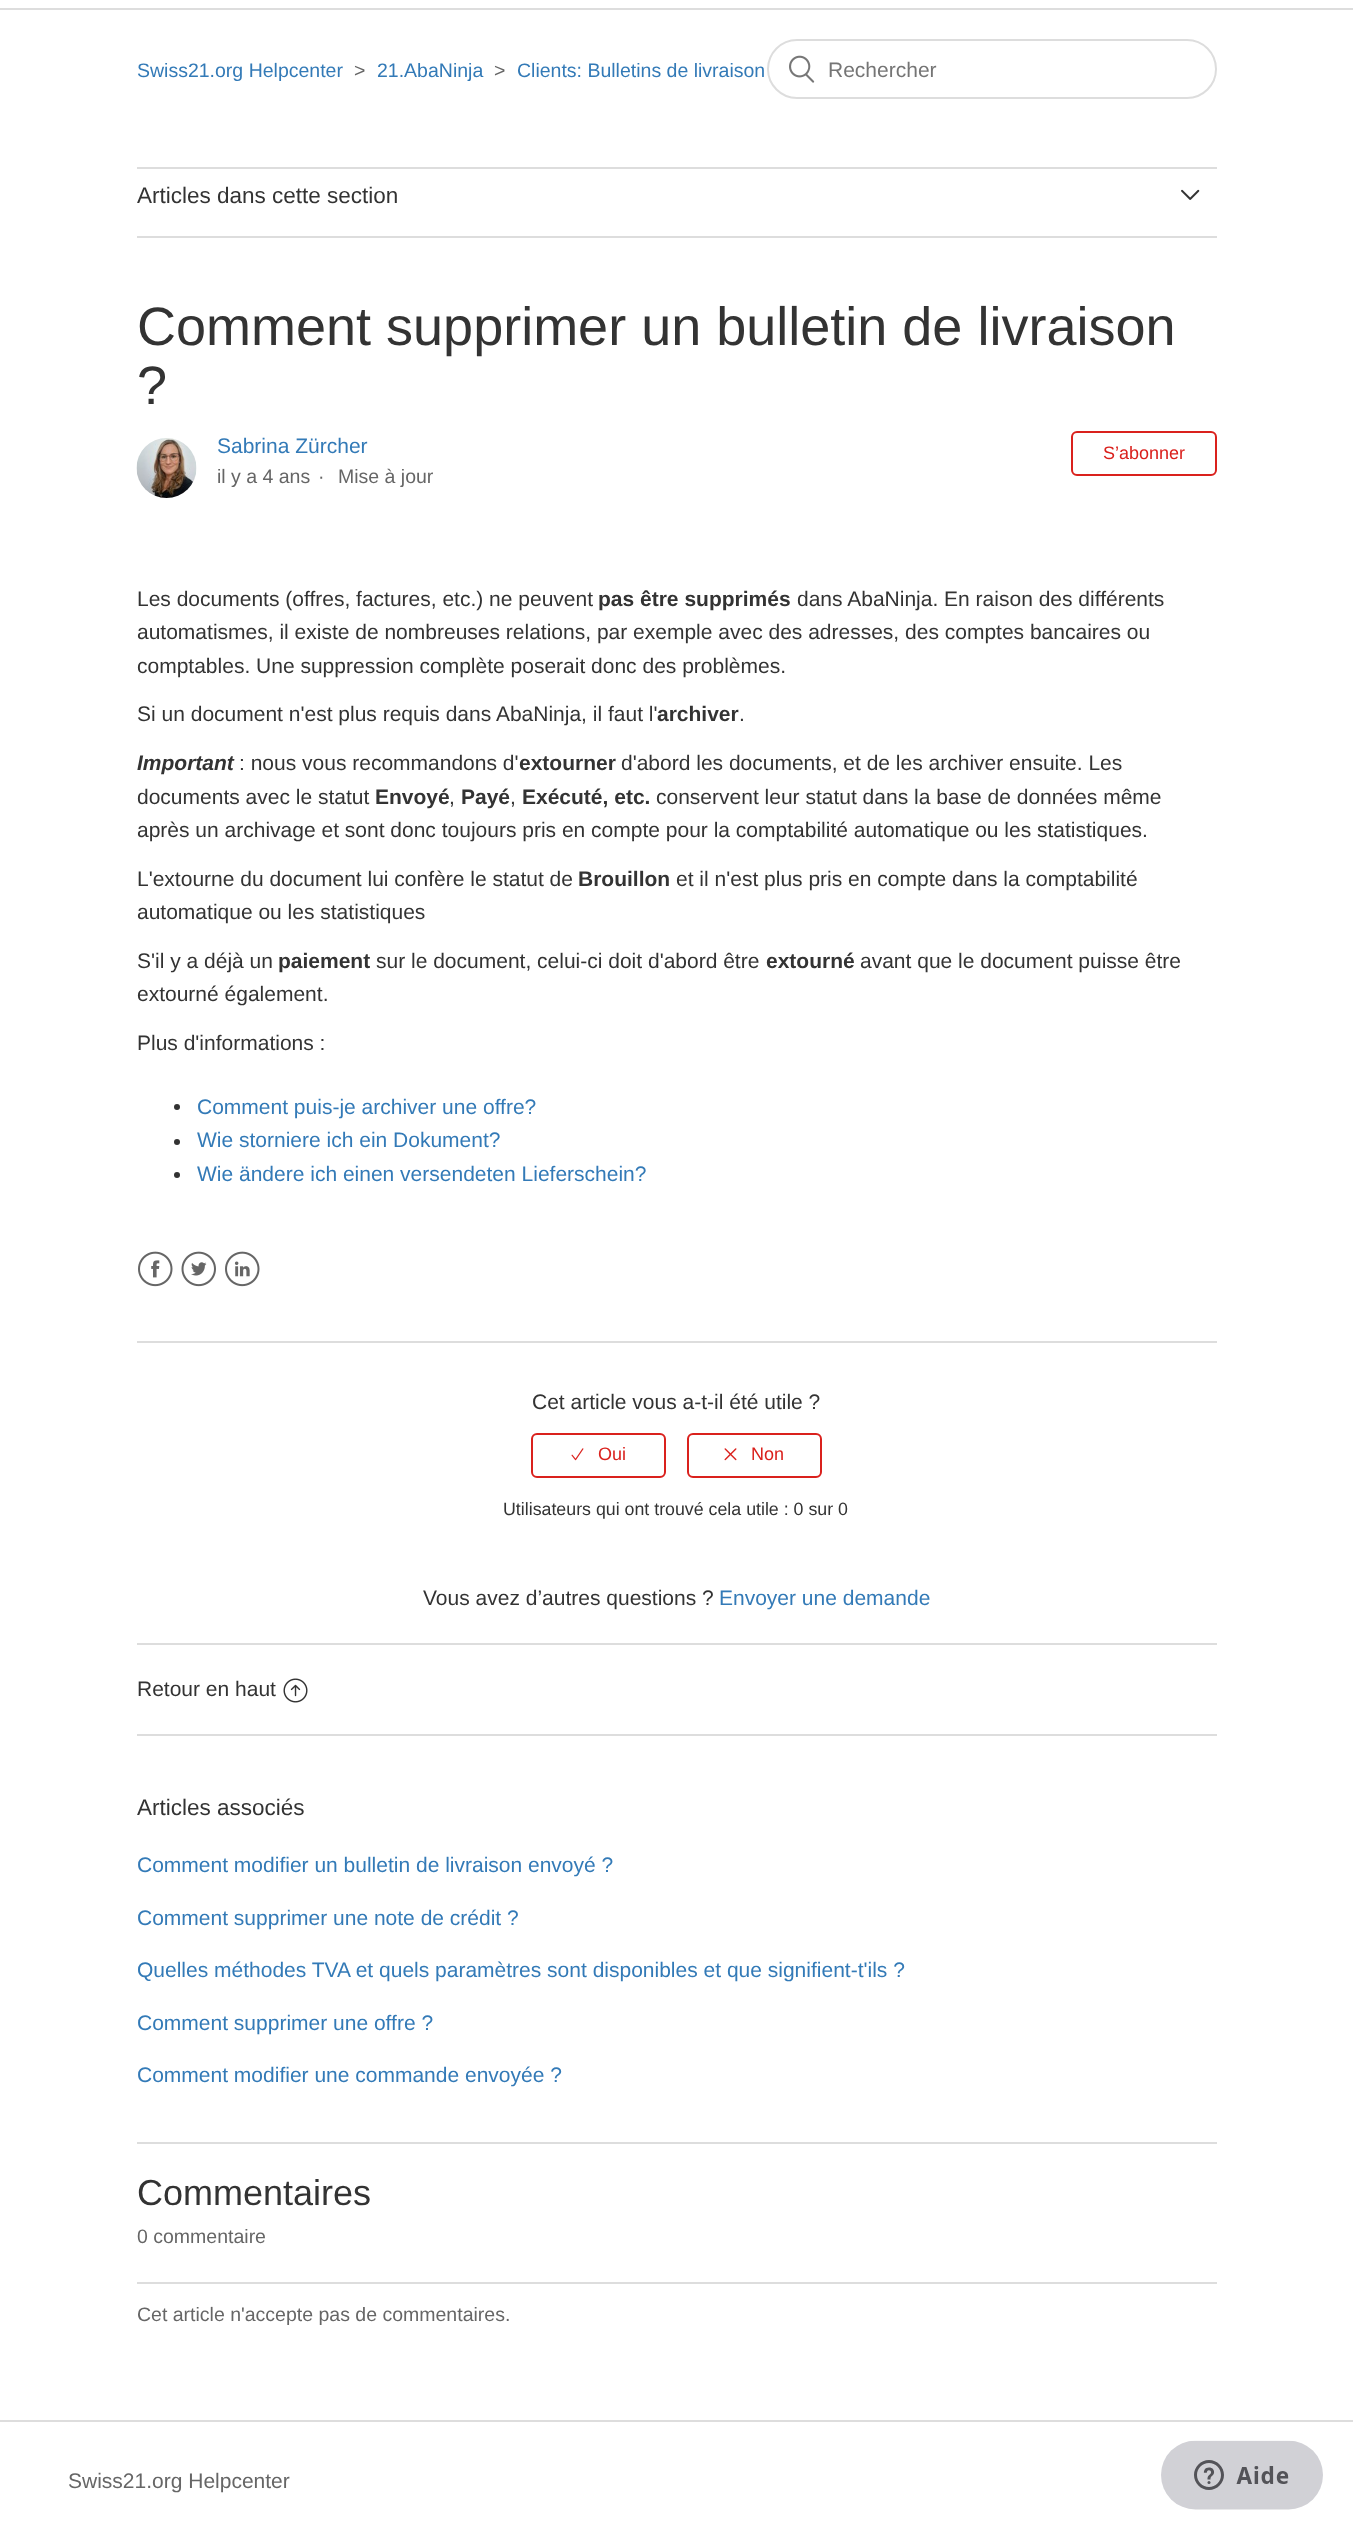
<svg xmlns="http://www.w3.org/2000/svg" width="1353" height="2530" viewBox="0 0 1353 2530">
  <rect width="100%" height="100%" fill="rgb(255,255,255)"/>
  <rect x="0" y="8" width="1353" height="2" fill="rgb(221,221,221)"/>
  <text x="137" y="77" font-family="Liberation Sans" font-size="19.5" fill="rgb(51,122,183)">Swiss21.org Helpcenter</text>
  <text x="354" y="77" font-family="Liberation Sans" font-size="19.5" fill="rgb(102,102,102)">&gt;</text>
  <text x="377" y="77" font-family="Liberation Sans" font-size="19.5" fill="rgb(51,122,183)">21.AbaNinja</text>
  <text x="494" y="77" font-family="Liberation Sans" font-size="19.5" fill="rgb(102,102,102)">&gt;</text>
  <text x="517" y="77" font-family="Liberation Sans" font-size="19.5" fill="rgb(51,122,183)">Clients: Bulletins de livraison</text>
  <rect x="768" y="40" width="448" height="58" rx="29" fill="none" stroke="rgb(221,221,221)" stroke-width="2"/>
  <image x="789" y="55" width="26" height="28" href="pic1.png"/>
  <text x="828" y="77" font-family="Liberation Sans" font-size="21" fill="rgb(117,117,117)">Rechercher</text>
  <rect x="137" y="167" width="1080" height="2" fill="rgb(221,221,221)"/>
  <rect x="137" y="236" width="1080" height="2" fill="rgb(221,221,221)"/>
  <text x="137" y="203" font-family="Liberation Sans" font-size="22.5" fill="rgb(51,51,51)">Articles dans cette section</text>
  <image x="1181" y="189" width="19" height="11" href="pic2.png"/>
  <g font-family="Liberation Sans" font-size="54" fill="rgb(51,51,51)">
    <text>
      <tspan x="137" y="345">Comment supprimer un bulletin de livraison</tspan>
      <tspan x="137" y="404">?</tspan>
    </text>
  </g>
  <image x="136" y="438" width="61" height="60" href="pic3.png"/>
  <text x="217" y="453" font-family="Liberation Sans" font-size="21" fill="rgb(51,122,183)">Sabrina Zürcher</text>
  <g font-family="Liberation Sans" font-size="19.5" fill="rgb(102,102,102)">
    <text x="217" y="483">il y a 4 ans</text>
    <text x="318" y="483">·</text>
    <text x="338" y="483">Mise à jour</text>
  </g>
  <rect x="1072" y="432" width="144" height="43" rx="5" fill="none" stroke="rgb(218,33,29)" stroke-width="2"/>
  <text x="1103" y="459" font-family="Liberation Sans" font-size="18" fill="rgb(218,33,29)">S’abonner</text>
  <text x="137" y="606" font-family="Liberation Sans" font-size="21" fill="rgb(51,51,51)">Les documents (offres, factures, etc.) ne peuvent</text>
  <text x="598" y="606" font-family="Liberation Sans" font-size="21" font-weight="bold" fill="rgb(51,51,51)">pas être supprimés</text>
  <g font-family="Liberation Sans" font-size="21" fill="rgb(51,51,51)">
    <text x="797" y="606">dans AbaNinja. En raison des différents</text>
    <text>
      <tspan x="137" y="639">automatismes, il existe de nombreuses relations, par exemple avec des adresses, des comptes bancaires ou</tspan>
      <tspan x="137" y="673">comptables. Une suppression complète poserait donc des problèmes.</tspan>
    </text>
    <text x="137" y="721">Si un document n'est plus requis dans AbaNinja, il faut l'</text>
  </g>
  <text x="657" y="721" font-family="Liberation Sans" font-size="21" font-weight="bold" fill="rgb(51,51,51)">archiver</text>
  <text x="739" y="721" font-family="Liberation Sans" font-size="21" fill="rgb(51,51,51)">.</text>
  <text x="137" y="770" font-family="Liberation Sans" font-size="21" font-weight="bold" font-style="italic" fill="rgb(51,51,51)">Important</text>
  <text x="239" y="770" font-family="Liberation Sans" font-size="21" fill="rgb(51,51,51)">: nous vous recommandons d'</text>
  <text x="519" y="770" font-family="Liberation Sans" font-size="21" font-weight="bold" fill="rgb(51,51,51)">extourner</text>
  <g font-family="Liberation Sans" font-size="21" fill="rgb(51,51,51)">
    <text x="621" y="770">d'abord les documents, et de les archiver ensuite. Les</text>
    <text x="137" y="804">documents avec le statut</text>
  </g>
  <text x="375" y="804" font-family="Liberation Sans" font-size="21" font-weight="bold" fill="rgb(51,51,51)">Envoyé</text>
  <text x="449" y="804" font-family="Liberation Sans" font-size="21" fill="rgb(51,51,51)">,</text>
  <text x="461" y="804" font-family="Liberation Sans" font-size="21" font-weight="bold" fill="rgb(51,51,51)">Payé</text>
  <text x="510" y="804" font-family="Liberation Sans" font-size="21" fill="rgb(51,51,51)">,</text>
  <text x="522" y="804" font-family="Liberation Sans" font-size="21" font-weight="bold" fill="rgb(51,51,51)">Exécuté, etc.</text>
  <g font-family="Liberation Sans" font-size="21" fill="rgb(51,51,51)">
    <text x="656" y="804">conservent leur statut dans la base de données même</text>
    <text x="137" y="837">après un archivage et sont donc toujours pris en compte pour la comptabilité automatique ou les statistiques.</text>
    <text x="137" y="886">L'extourne du document lui confère le statut de</text>
  </g>
  <text x="578" y="886" font-family="Liberation Sans" font-size="21" font-weight="bold" fill="rgb(51,51,51)">Brouillon</text>
  <g font-family="Liberation Sans" font-size="21" fill="rgb(51,51,51)">
    <text x="676" y="886">et il n'est plus pris en compte dans la comptabilité</text>
    <text x="137" y="919">automatique ou les statistiques</text>
    <text x="137" y="968">S'il y a déjà un</text>
  </g>
  <text x="278" y="968" font-family="Liberation Sans" font-size="21" font-weight="bold" fill="rgb(51,51,51)">paiement</text>
  <text x="376" y="968" font-family="Liberation Sans" font-size="21" fill="rgb(51,51,51)">sur le document, celui-ci doit d'abord être</text>
  <text x="766" y="968" font-family="Liberation Sans" font-size="21" font-weight="bold" fill="rgb(51,51,51)">extourné</text>
  <g font-family="Liberation Sans" font-size="21" fill="rgb(51,51,51)">
    <text x="860" y="968">avant que le document puisse être</text>
    <text x="137" y="1001">extourné également.</text>
    <text x="137" y="1050">Plus d'informations :</text>
  </g>
  <circle cx="177" cy="1107" r="3" fill="rgb(51,51,51)"/>
  <text x="197" y="1114" font-family="Liberation Sans" font-size="21" fill="rgb(51,122,183)">Comment puis-je archiver une offre?</text>
  <circle cx="177" cy="1142" r="3" fill="rgb(51,51,51)"/>
  <text x="197" y="1147" font-family="Liberation Sans" font-size="21" fill="rgb(51,122,183)">Wie storniere ich ein Dokument?</text>
  <circle cx="177" cy="1175" r="3" fill="rgb(51,51,51)"/>
  <text x="197" y="1181" font-family="Liberation Sans" font-size="21" fill="rgb(51,122,183)">Wie ändere ich einen versendeten Lieferschein?</text>
  <image x="138" y="1251" width="35" height="36" href="pic4.png"/>
  <image x="181" y="1251" width="35" height="36" href="pic5.png"/>
  <image x="225" y="1251" width="35" height="36" href="pic6.png"/>
  <rect x="137" y="1341" width="1080" height="2" fill="rgb(221,221,221)"/>
  <text x="532" y="1409" font-family="Liberation Sans" font-size="21" fill="rgb(51,51,51)">Cet article vous a-t-il été utile ?</text>
  <rect x="532" y="1434" width="133" height="43" rx="5" fill="none" stroke="rgb(218,33,29)" stroke-width="2"/>
  <image x="571" y="1448" width="13" height="13" href="pic7.png"/>
  <text x="598" y="1460" font-family="Liberation Sans" font-size="18" fill="rgb(218,33,29)">Oui</text>
  <rect x="688" y="1434" width="133" height="43" rx="5" fill="none" stroke="rgb(218,33,29)" stroke-width="2"/>
  <image x="724" y="1448" width="13" height="13" href="pic8.png"/>
  <text x="751" y="1460" font-family="Liberation Sans" font-size="18" fill="rgb(218,33,29)">Non</text>
  <text x="503" y="1515" font-family="Liberation Sans" font-size="17.8" fill="rgb(51,51,51)">Utilisateurs qui ont trouvé cela utile : 0 sur 0</text>
  <text x="423" y="1605" font-family="Liberation Sans" font-size="21" fill="rgb(51,51,51)">Vous avez d’autres questions ?</text>
  <text x="719" y="1605" font-family="Liberation Sans" font-size="21" fill="rgb(51,122,183)">Envoyer une demande</text>
  <rect x="137" y="1643" width="1080" height="2" fill="rgb(221,221,221)"/>
  <text x="137" y="1696" font-family="Liberation Sans" font-size="21" fill="rgb(51,51,51)">Retour en haut</text>
  <image x="283" y="1678" width="25" height="25" href="pic9.png"/>
  <rect x="137" y="1734" width="1080" height="2" fill="rgb(221,221,221)"/>
  <text x="137" y="1815" font-family="Liberation Sans" font-size="22.5" fill="rgb(51,51,51)">Articles associés</text>
  <g font-family="Liberation Sans" font-size="21" fill="rgb(51,122,183)">
    <text x="137" y="1872">Comment modifier un bulletin de livraison envoyé ?</text>
    <text x="137" y="1925">Comment supprimer une note de crédit ?</text>
    <text x="137" y="1977">Quelles méthodes TVA et quels paramètres sont disponibles et que signifient-t'ils ?</text>
    <text x="137" y="2030">Comment supprimer une offre ?</text>
    <text x="137" y="2082">Comment modifier une commande envoyée ?</text>
  </g>
  <rect x="137" y="2142" width="1080" height="2" fill="rgb(221,221,221)"/>
  <rect x="137" y="2282" width="1080" height="2" fill="rgb(221,221,221)"/>
  <text x="137" y="2205" font-family="Liberation Sans" font-size="36" fill="rgb(51,51,51)">Commentaires</text>
  <g font-family="Liberation Sans" font-size="19.5" fill="rgb(102,102,102)">
    <text x="137" y="2243">0 commentaire</text>
    <text x="137" y="2321">Cet article n'accepte pas de commentaires.</text>
  </g>
  <rect x="0" y="2420" width="1353" height="2" fill="rgb(221,221,221)"/>
  <text x="68" y="2488" font-family="Liberation Sans" font-size="21" fill="rgb(102,102,102)">Swiss21.org Helpcenter</text>
  <image x="1161" y="2440" width="162" height="70" href="pic10.png"/>
</svg>
